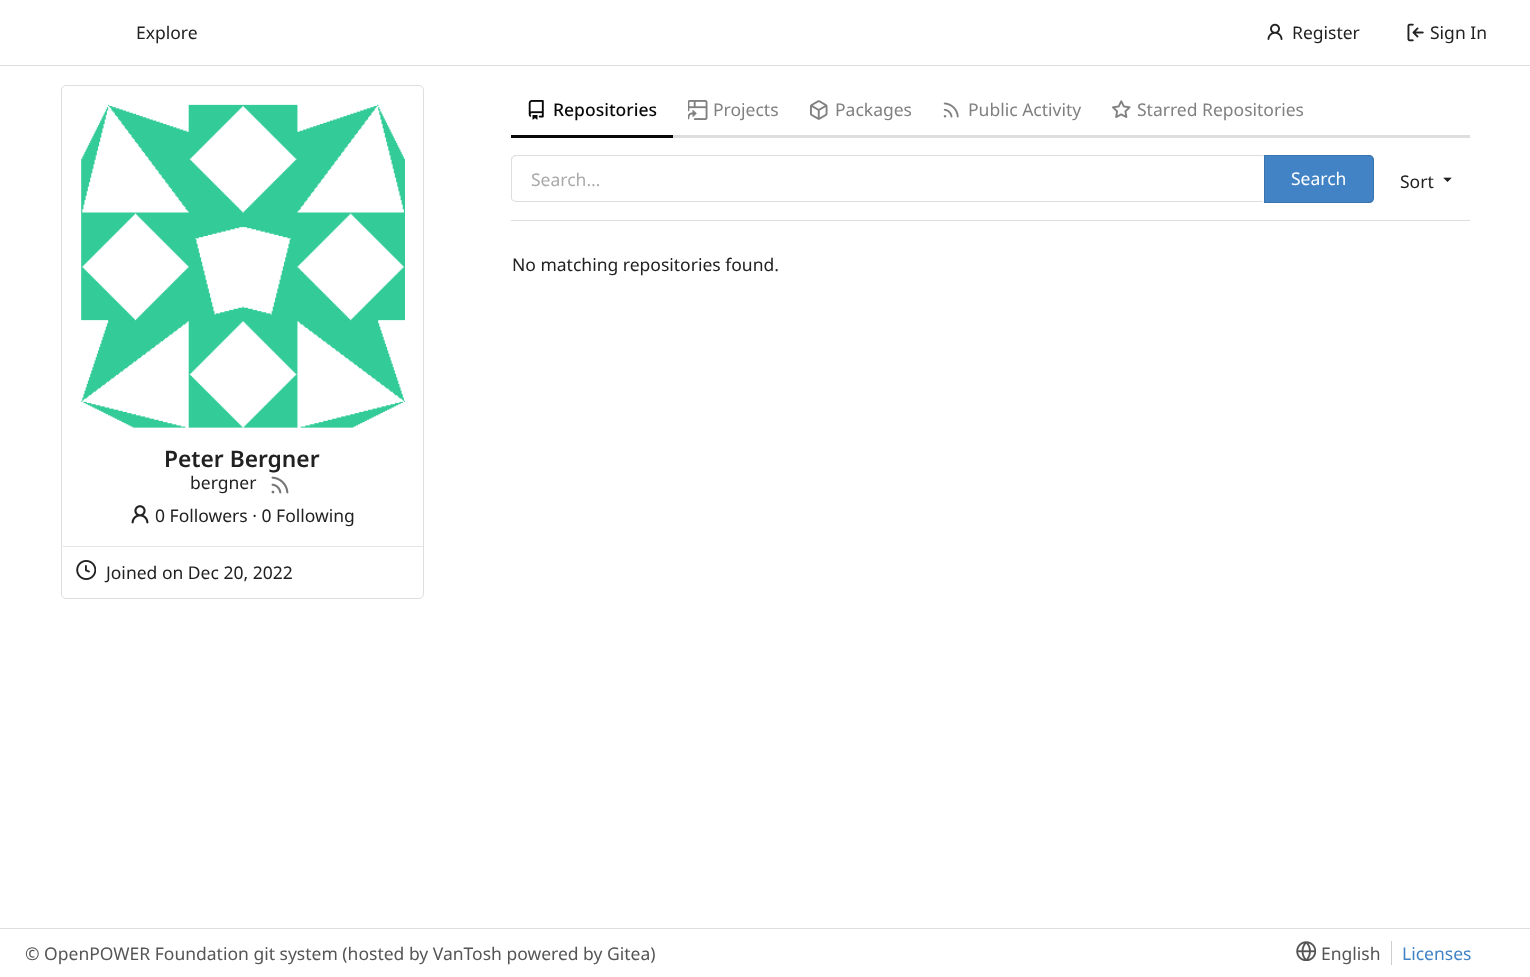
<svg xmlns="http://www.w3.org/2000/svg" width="1530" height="977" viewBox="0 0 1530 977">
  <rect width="100%" height="100%" fill="rgb(255,255,255)"/>
  <rect x="0" y="65" width="1530" height="1" fill="rgb(222,222,222)"/>
  <text x="136" y="39" font-family="Noto Sans" font-size="17.5" fill="rgb(33,33,33)">Explore</text>
  <image x="1267" y="23" width="16" height="17" href="pic1.png"/>
  <text x="1292" y="39" font-family="Noto Sans" font-size="17.5" fill="rgb(33,33,33)">Register</text>
  <image x="1407" y="23" width="17" height="19" href="pic2.png"/>
  <text x="1430" y="39" font-family="Noto Sans" font-size="17.5" fill="rgb(33,33,33)">Sign In</text>
  <rect x="673" y="135" width="797" height="3" fill="rgb(222,222,222)"/>
  <rect x="511" y="135" width="162" height="3" fill="rgb(8,8,8)"/>
  <image x="528" y="100" width="16" height="20" href="pic3.png"/>
  <text x="553" y="116" font-family="Noto Sans" font-size="17.5" font-weight="500" fill="rgb(8,8,8)">Repositories</text>
  <image x="688" y="100" width="20" height="20" href="pic4.png"/>
  <text x="713" y="116" font-family="Noto Sans" font-size="17.5" fill="rgb(128,128,128)">Projects</text>
  <image x="810" y="100" width="18" height="20" href="pic5.png"/>
  <text x="835" y="116" font-family="Noto Sans" font-size="17.5" fill="rgb(128,128,128)">Packages</text>
  <image x="943" y="102" width="16" height="16" href="pic6.png"/>
  <text x="968" y="116" font-family="Noto Sans" font-size="17.5" fill="rgb(128,128,128)">Public Activity</text>
  <image x="1112" y="100" width="19" height="18" href="pic7.png"/>
  <text x="1137" y="116" font-family="Noto Sans" font-size="17.5" fill="rgb(128,128,128)">Starred Repositories</text>
  <path d="M516 155C515 155 513 155 513 156V157L516 156H1262V157L1264 155Z" fill="rgb(222,222,222)"/>
  <path d="M1263 202H516L513 201V200L516 201H1262Z" fill="rgb(222,222,222)"/>
  <path d="M511 158L513 156V157L512 160V199L513 200V201L511 199Z" fill="rgb(222,222,222)"/>
  <text x="531" y="186" font-family="Noto Sans" font-size="17.5" fill="rgb(170,170,170)">Search…</text>
  <path d="M1264 155H1369C1372 155 1374 157 1374 160V198C1374 201 1372 203 1369 203H1264Z" fill="rgb(65,131,196)"/>
  <path d="M1264.5 155.5H1369C1371.5 155.5 1373.5 157.5 1373.5 160V198C1373.5 200.5 1371.5 202.5 1369 202.5H1264.5Z" fill="none" stroke="rgba(0,0,0,0.11)"/>
  <text x="1291" y="185" font-family="Noto Sans" font-size="17.5" fill="rgb(255,255,255)">Search</text>
  <text x="1400" y="188" font-family="Noto Sans" font-size="17.5" fill="rgb(33,33,33)">Sort</text>
  <image x="1443" y="177" width="9" height="5" href="pic8.png"/>
  <rect x="511" y="220" width="959" height="1" fill="rgb(222,222,222)"/>
  <text x="512" y="271" font-family="Noto Sans" font-size="17.5" fill="rgb(33,33,33)">No matching repositories found.</text>
  <rect x="61.5" y="85.5" width="362" height="513" rx="4.5" fill="none" stroke="rgb(222,222,222)"/>
  <image x="81" y="104" width="324" height="324" href="pic9.png"/>
  <text x="164" y="467" font-family="Noto Sans" font-size="22.75" font-weight="600" fill="rgb(33,33,33)">Peter Bergner</text>
  <text x="190" y="489" font-family="Noto Sans" font-size="17.5" fill="rgb(33,33,33)">bergner</text>
  <image x="271" y="476" width="18" height="18" href="pic10.png"/>
  <image x="131" y="505" width="18" height="19" href="pic11.png"/>
  <text x="155" y="522" font-family="Noto Sans" font-size="17.5" fill="rgb(33,33,33)">0 Followers · 0 Following</text>
  <rect x="63" y="546" width="360" height="1" fill="rgb(229,229,229)"/>
  <image x="76" y="560" width="20" height="20" href="pic12.png"/>
  <text x="106" y="579" font-family="Noto Sans" font-size="17.5" fill="rgb(33,33,33)">Joined on Dec 20, 2022</text>
  <rect x="0" y="928" width="1530" height="1" fill="rgb(222,222,222)"/>
  <text x="25" y="960" font-family="Noto Sans" font-size="17.5" fill="rgb(85,85,85)">© OpenPOWER Foundation git system (hosted by VanTosh powered by Gitea)</text>
  <image x="1296" y="941" width="20" height="20" href="pic13.png"/>
  <text x="1321" y="960" font-family="Noto Sans" font-size="17.5" fill="rgb(85,85,85)">English</text>
  <text x="1402" y="960" font-family="Noto Sans" font-size="17.5" fill="rgb(65,131,196)">Licenses</text>
  <rect x="1391" y="941" width="1" height="24" fill="rgb(206,206,206)"/>
</svg>
